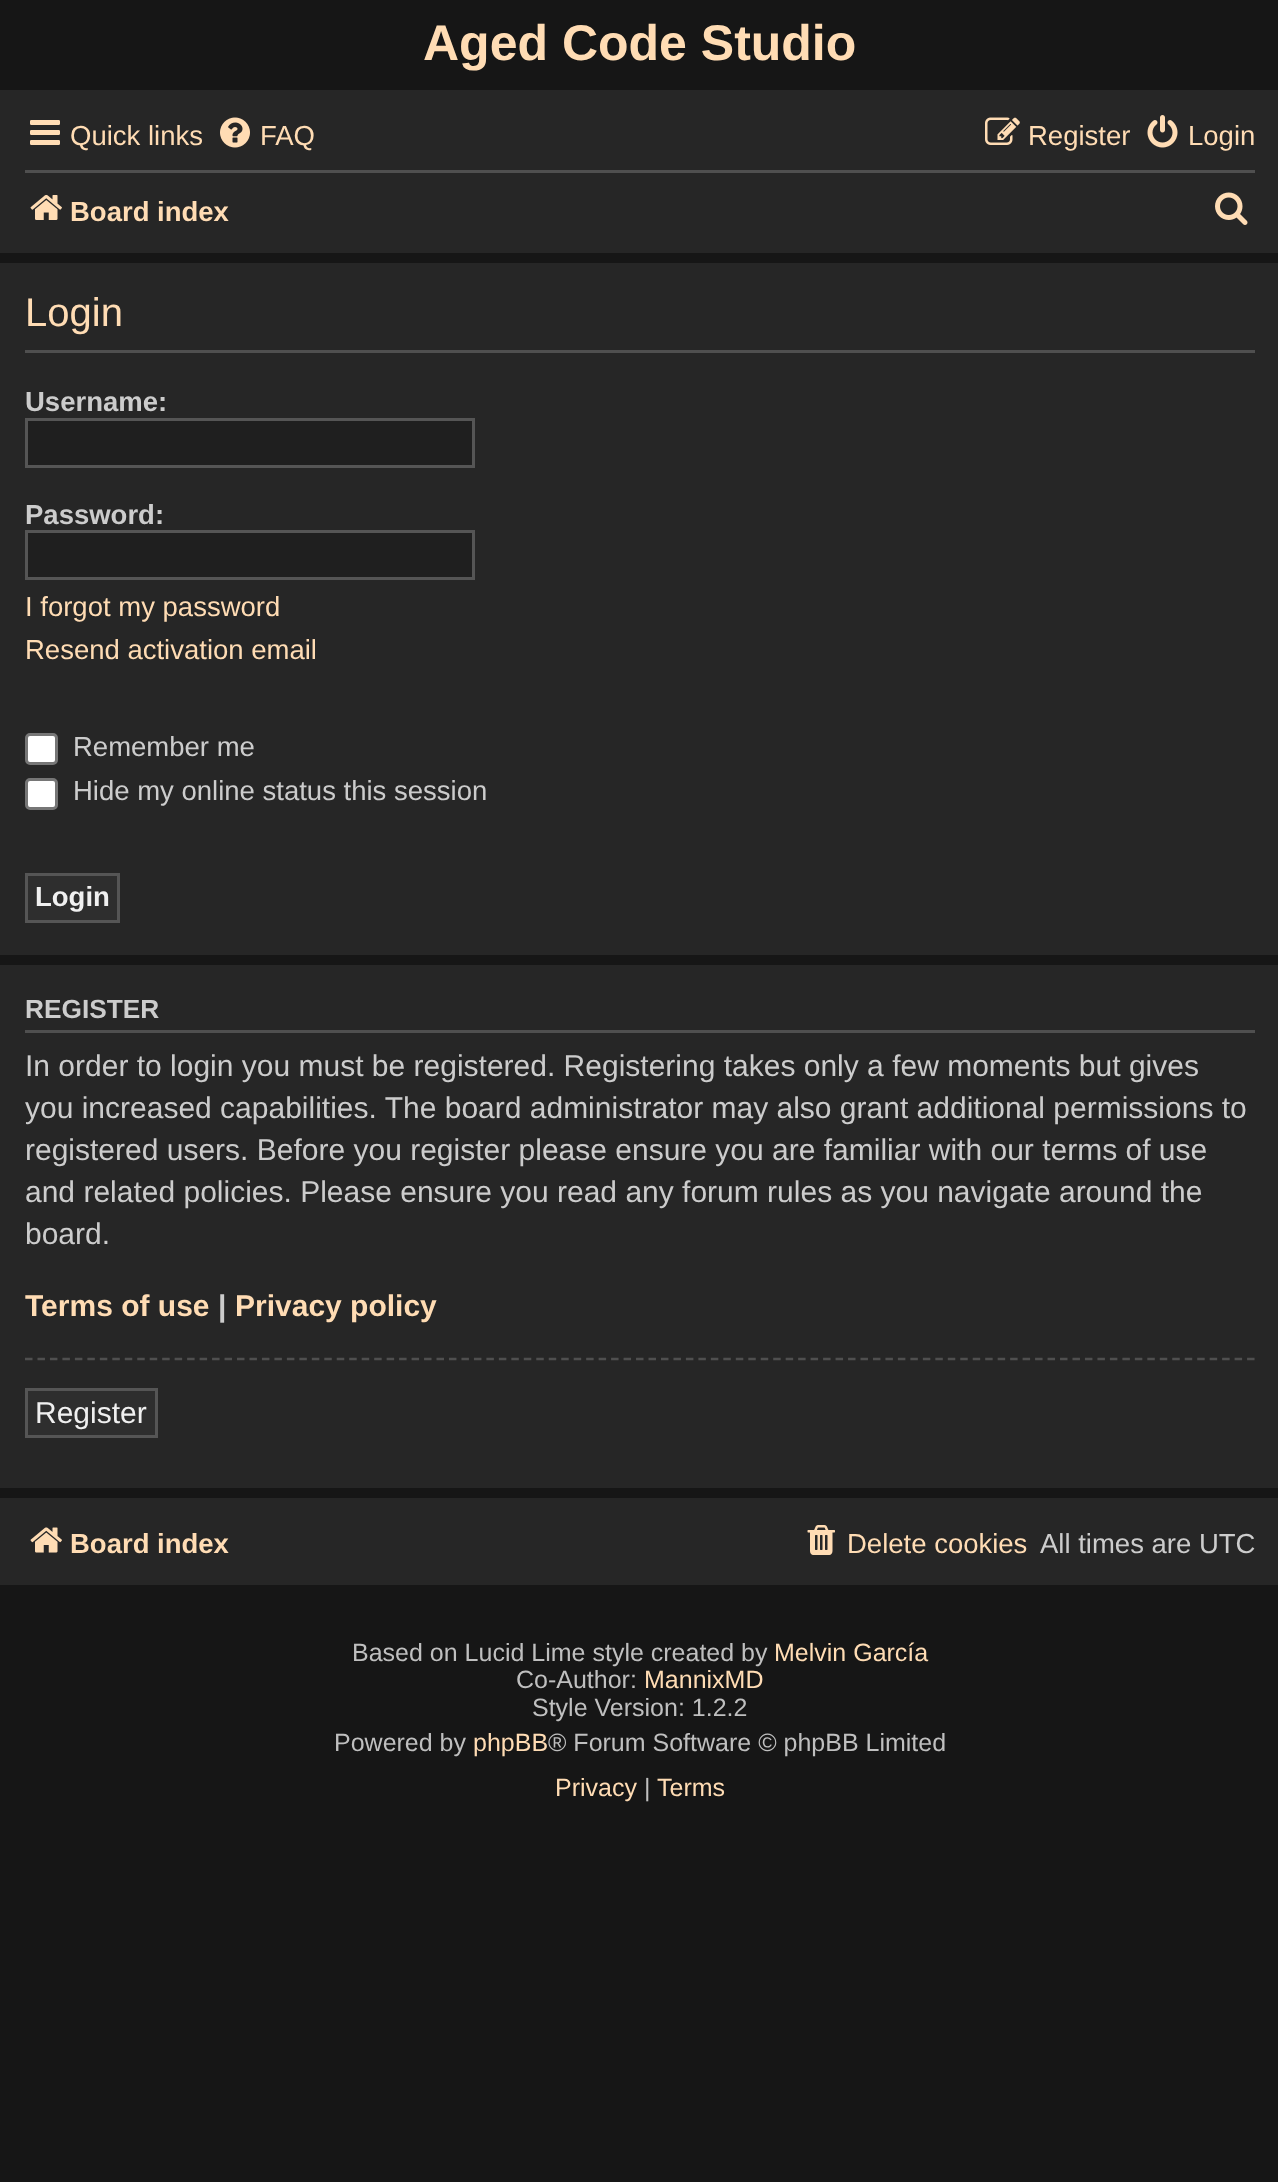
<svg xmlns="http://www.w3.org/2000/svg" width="1278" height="2182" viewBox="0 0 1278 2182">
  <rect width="100%" height="100%" fill="rgb(22,22,22)"/>
  <text x="423" y="60" font-family="Liberation Sans" font-size="50" font-weight="bold" fill="rgb(255,220,180)">Aged Code Studio</text>
  <rect x="0" y="90" width="1278" height="163" fill="rgb(38,38,38)"/>
  <image x="30" y="120" width="30" height="25" href="pic1.png"/>
  <text x="70" y="145" font-family="Liberation Sans" font-size="27.5" fill="rgb(255,220,180)">Quick links</text>
  <image x="220" y="117" width="30" height="31" href="pic2.png"/>
  <text x="260" y="145" font-family="Liberation Sans" font-size="27.5" fill="rgb(255,220,180)">FAQ</text>
  <image x="985" y="117" width="35" height="28" href="pic3.png"/>
  <text x="1028" y="145" font-family="Liberation Sans" font-size="27.5" fill="rgb(255,220,180)">Register</text>
  <image x="1147" y="115" width="31" height="33" href="pic4.png"/>
  <text x="1188" y="145" font-family="Liberation Sans" font-size="27.5" fill="rgb(255,220,180)">Login</text>
  <rect x="25" y="170" width="1230" height="3" fill="rgb(79,79,79)"/>
  <image x="30" y="194" width="32" height="26" href="pic5.png"/>
  <text x="70" y="221" font-family="Liberation Sans" font-size="27.5" font-weight="bold" fill="rgb(255,220,180)">Board index</text>
  <image x="1215" y="192" width="33" height="33" href="pic6.png"/>
  <rect x="0" y="263" width="1278" height="692" fill="rgb(38,38,38)"/>
  <rect x="25" y="350" width="1230" height="3" fill="rgb(79,79,79)"/>
  <text x="25" y="326" font-family="Liberation Sans" font-size="40" fill="rgb(255,220,180)">Login</text>
  <text x="25" y="411" font-family="Liberation Sans" font-size="27.5" font-weight="bold" fill="rgb(204,204,204)">Username:</text>
  <rect x="26.5" y="419.5" width="447" height="47" fill="rgb(31,31,31)" stroke="rgb(85,85,85)" stroke-width="3"/>
  <text x="25" y="524" font-family="Liberation Sans" font-size="27.5" font-weight="bold" fill="rgb(204,204,204)">Password:</text>
  <rect x="26.5" y="531.5" width="447" height="47" fill="rgb(31,31,31)" stroke="rgb(85,85,85)" stroke-width="3"/>
  <g font-family="Liberation Sans" font-size="27.5" fill="rgb(255,220,180)">
    <text>
      <tspan x="25" y="616">I forgot my password</tspan>
      <tspan x="25" y="659">Resend activation email</tspan>
    </text>
  </g>
  <rect x="26.5" y="734.5" width="30" height="29" rx="3.5" fill="rgb(255,255,255)" stroke="rgb(118,118,118)" stroke-width="3"/>
  <text x="73" y="756" font-family="Liberation Sans" font-size="27.5" fill="rgb(204,204,204)">Remember me</text>
  <rect x="26.5" y="779.5" width="30" height="29" rx="3.5" fill="rgb(255,255,255)" stroke="rgb(118,118,118)" stroke-width="3"/>
  <text x="73" y="800" font-family="Liberation Sans" font-size="27.5" fill="rgb(204,204,204)">Hide my online status this session</text>
  <rect x="26.5" y="874.5" width="92" height="47" fill="rgb(46,46,46)" stroke="rgb(85,85,85)" stroke-width="3"/>
  <text x="35" y="906" font-family="Liberation Sans" font-size="27.5" font-weight="bold" fill="rgb(240,240,240)">Login</text>
  <rect x="0" y="965" width="1278" height="523" fill="rgb(38,38,38)"/>
  <rect x="25" y="1030" width="1230" height="3" fill="rgb(79,79,79)"/>
  <text x="25" y="1018" font-family="Liberation Sans" font-size="26.25" font-weight="bold" fill="rgb(204,204,204)">REGISTER</text>
  <g font-family="Liberation Sans" font-size="30" fill="rgb(204,204,204)">
    <text>
      <tspan x="25" y="1076">In order to login you must be registered. Registering takes only a few moments but gives</tspan>
      <tspan x="25" y="1118">you increased capabilities. The board administrator may also grant additional permissions to</tspan>
      <tspan x="25" y="1160">registered users. Before you register please ensure you are familiar with our terms of use</tspan>
      <tspan x="25" y="1202">and related policies. Please ensure you read any forum rules as you navigate around the</tspan>
      <tspan x="25" y="1244">board.</tspan>
    </text>
  </g>
  <text x="25" y="1316" font-family="Liberation Sans" font-size="30" font-weight="bold" fill="rgb(255,220,180)">Terms of use</text>
  <text x="218" y="1316" font-family="Liberation Sans" font-size="30" font-weight="bold" fill="rgb(204,204,204)">|</text>
  <text x="235" y="1316" font-family="Liberation Sans" font-size="30" font-weight="bold" fill="rgb(255,220,180)">Privacy policy</text>
  <path d="M25 1359H1255" fill="none" stroke="rgb(79,79,79)" stroke-width="2.5" stroke-dasharray="7.5 4.97"/>
  <rect x="26.5" y="1389.5" width="130" height="47" fill="rgb(46,46,46)" stroke="rgb(85,85,85)" stroke-width="3"/>
  <text x="35" y="1423" font-family="Liberation Sans" font-size="30" fill="rgb(240,240,240)">Register</text>
  <rect x="0" y="1498" width="1278" height="87" fill="rgb(38,38,38)"/>
  <image x="30" y="1527" width="32" height="26" href="pic7.png"/>
  <text x="70" y="1553" font-family="Liberation Sans" font-size="27.5" font-weight="bold" fill="rgb(255,220,180)">Board index</text>
  <image x="807" y="1525" width="28" height="30" href="pic8.png"/>
  <text x="847" y="1553" font-family="Liberation Sans" font-size="27.5" fill="rgb(255,220,180)">Delete cookies</text>
  <text x="1040" y="1553" font-family="Liberation Sans" font-size="27.5" fill="rgb(204,204,204)">All times are UTC</text>
  <text x="352" y="1661" font-family="Liberation Sans" font-size="25" fill="rgb(191,191,191)">Based on Lucid Lime style created by</text>
  <text x="774" y="1661" font-family="Liberation Sans" font-size="25" fill="rgb(255,220,180)">Melvin García</text>
  <text x="516" y="1688" font-family="Liberation Sans" font-size="25" fill="rgb(191,191,191)">Co-Author:</text>
  <text x="644" y="1688" font-family="Liberation Sans" font-size="25" fill="rgb(255,220,180)">MannixMD</text>
  <g font-family="Liberation Sans" font-size="25" fill="rgb(191,191,191)">
    <text x="532" y="1716">Style Version: 1.2.2</text>
    <text x="334" y="1751">Powered by</text>
  </g>
  <text x="473" y="1751" font-family="Liberation Sans" font-size="25" fill="rgb(255,220,180)">phpBB</text>
  <text x="548" y="1751" font-family="Liberation Sans" font-size="25" fill="rgb(191,191,191)">® Forum Software © phpBB Limited</text>
  <text x="555" y="1796" font-family="Liberation Sans" font-size="25" fill="rgb(255,220,180)">Privacy</text>
  <text x="644" y="1796" font-family="Liberation Sans" font-size="25" fill="rgb(191,191,191)">|</text>
  <text x="657" y="1796" font-family="Liberation Sans" font-size="25" fill="rgb(255,220,180)">Terms</text>
</svg>
